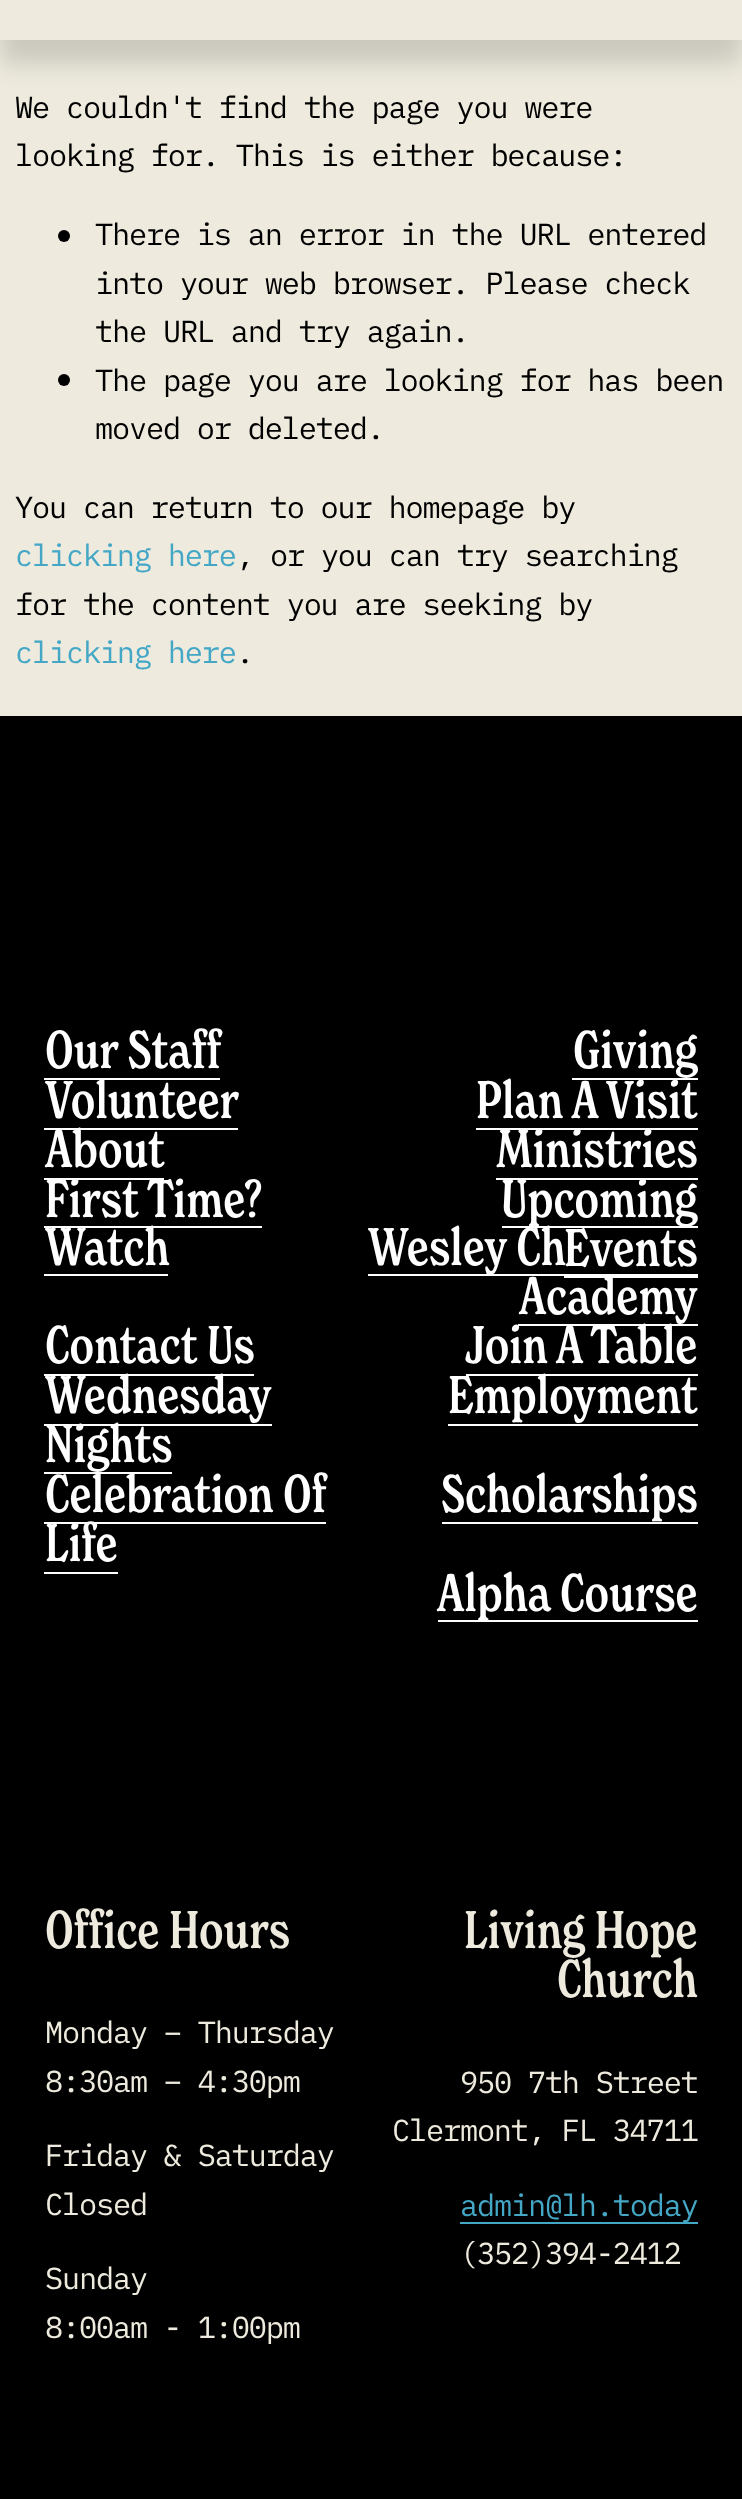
<svg xmlns="http://www.w3.org/2000/svg" width="742" height="2499" viewBox="0 0 742 2499">
  <defs>
    <clipPath id="clip1"><rect x="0" y="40" width="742" height="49"/></clipPath>
  </defs>
  <rect width="100%" height="100%" fill="rgb(238,235,222)"/>
  <g clip-path="url(#clip1)">
    <rect x="0" y="-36" width="742" height="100" fill="rgb(202,200,189)" filter="blur(12px)"/>
  </g>
  <g font-family="IBM Plex Mono" font-size="30.3" letter-spacing="-1.2" fill="rgb(0,0,0)">
    <text>
      <tspan x="15" y="118">We couldn't find the page you were</tspan>
      <tspan x="15" y="166">looking for. This is either because:</tspan>
    </text>
  </g>
  <circle cx="64" cy="236" r="6" fill="rgb(0,0,0)"/>
  <g font-family="IBM Plex Mono" font-size="30.3" letter-spacing="-1.2" fill="rgb(0,0,0)">
    <text>
      <tspan x="95" y="245">There is an error in the URL entered</tspan>
      <tspan x="95" y="294">into your web browser. Please check</tspan>
      <tspan x="95" y="342">the URL and try again.</tspan>
    </text>
  </g>
  <circle cx="64" cy="380" r="6" fill="rgb(0,0,0)"/>
  <g font-family="IBM Plex Mono" font-size="30.3" letter-spacing="-1.2" fill="rgb(0,0,0)">
    <text>
      <tspan x="95" y="391">The page you are looking for has been</tspan>
      <tspan x="95" y="439">moved or deleted.</tspan>
    </text>
    <text x="15" y="518">You can return to our homepage by</text>
  </g>
  <text x="15" y="566" font-family="IBM Plex Mono" font-size="30.3" letter-spacing="-1.2" fill="rgb(68,167,198)">clicking here</text>
  <g font-family="IBM Plex Mono" font-size="30.3" letter-spacing="-1.2" fill="rgb(0,0,0)">
    <text x="236" y="566">, or you can try searching</text>
    <text x="15" y="615">for the content you are seeking by</text>
  </g>
  <text x="15" y="663" font-family="IBM Plex Mono" font-size="30.3" letter-spacing="-1.2" fill="rgb(68,167,198)">clicking here</text>
  <text x="236" y="663" font-family="IBM Plex Mono" font-size="30.3" letter-spacing="-1.2" fill="rgb(0,0,0)">.</text>
  <rect x="0" y="716" width="742" height="1783" fill="rgb(0,0,0)"/>
  <text x="45" y="1068" font-family="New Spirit" font-size="52" font-weight="500" fill="rgb(255,255,255)">Our Staff</text>
  <rect x="44" y="1078" width="176" height="2" fill="rgb(255,255,255)"/>
  <text x="573" y="1068" font-family="New Spirit" font-size="52" font-weight="500" fill="rgb(255,255,255)">Giving</text>
  <rect x="572" y="1078" width="126" height="2" fill="rgb(255,255,255)"/>
  <text x="45" y="1118" font-family="New Spirit" font-size="52" font-weight="500" fill="rgb(255,255,255)">Volunteer</text>
  <rect x="44" y="1128" width="194" height="2" fill="rgb(255,255,255)"/>
  <text x="476" y="1118" font-family="New Spirit" font-size="52" font-weight="500" fill="rgb(255,255,255)">Plan A Visit</text>
  <rect x="476" y="1128" width="222" height="2" fill="rgb(255,255,255)"/>
  <text x="45" y="1167" font-family="New Spirit" font-size="52" font-weight="500" fill="rgb(255,255,255)">About</text>
  <rect x="44" y="1178" width="120" height="2" fill="rgb(255,255,255)"/>
  <text x="496" y="1167" font-family="New Spirit" font-size="52" font-weight="500" fill="rgb(255,255,255)">Ministries</text>
  <rect x="496" y="1178" width="202" height="2" fill="rgb(255,255,255)"/>
  <text x="45" y="1217" font-family="New Spirit" font-size="52" font-weight="500" fill="rgb(255,255,255)">First Time?</text>
  <rect x="44" y="1226" width="218" height="2" fill="rgb(255,255,255)"/>
  <rect x="502" y="1226" width="196" height="2" fill="rgb(255,255,255)"/>
  <g font-family="New Spirit" font-size="52" font-weight="500" fill="rgb(255,255,255)">
    <text x="501" y="1217">Upcoming</text>
    <text x="564" y="1266">Events</text>
  </g>
  <rect x="564" y="1276" width="134" height="2" fill="rgb(255,255,255)"/>
  <text x="45" y="1265" font-family="New Spirit" font-size="52" font-weight="500" fill="rgb(255,255,255)">Watch</text>
  <rect x="44" y="1274" width="124" height="2" fill="rgb(255,255,255)"/>
  <rect x="368" y="1274" width="330" height="2" fill="rgb(255,255,255)"/>
  <g font-family="New Spirit" font-size="52" font-weight="500" fill="rgb(255,255,255)">
    <text x="368" y="1265">Wesley Ch</text>
    <text x="519" y="1314">Academy</text>
  </g>
  <rect x="518" y="1324" width="180" height="2" fill="rgb(255,255,255)"/>
  <text x="45" y="1363" font-family="New Spirit" font-size="52" font-weight="500" fill="rgb(255,255,255)">Contact Us</text>
  <rect x="44" y="1374" width="210" height="2" fill="rgb(255,255,255)"/>
  <text x="465" y="1363" font-family="New Spirit" font-size="52" font-weight="500" fill="rgb(255,255,255)">Join A Table</text>
  <rect x="466" y="1374" width="232" height="2" fill="rgb(255,255,255)"/>
  <text x="45" y="1413" font-family="New Spirit" font-size="52" font-weight="500" fill="rgb(255,255,255)">Wednesday</text>
  <rect x="44" y="1424" width="228" height="2" fill="rgb(255,255,255)"/>
  <text x="45" y="1462" font-family="New Spirit" font-size="52" font-weight="500" fill="rgb(255,255,255)">Nights</text>
  <rect x="44" y="1472" width="128" height="2" fill="rgb(255,255,255)"/>
  <text x="448" y="1413" font-family="New Spirit" font-size="52" font-weight="500" fill="rgb(255,255,255)">Employment</text>
  <rect x="448" y="1424" width="250" height="2" fill="rgb(255,255,255)"/>
  <text x="45" y="1512" font-family="New Spirit" font-size="52" font-weight="500" fill="rgb(255,255,255)">Celebration Of</text>
  <rect x="44" y="1522" width="282" height="2" fill="rgb(255,255,255)"/>
  <text x="45" y="1561" font-family="New Spirit" font-size="52" font-weight="500" fill="rgb(255,255,255)">Life</text>
  <rect x="44" y="1572" width="74" height="2" fill="rgb(255,255,255)"/>
  <text x="441" y="1512" font-family="New Spirit" font-size="52" font-weight="500" fill="rgb(255,255,255)">Scholarships</text>
  <rect x="442" y="1522" width="256" height="2" fill="rgb(255,255,255)"/>
  <rect x="438" y="1620" width="260" height="2" fill="rgb(255,255,255)"/>
  <text x="437" y="1611" font-family="New Spirit" font-size="52" font-weight="500" fill="rgb(255,255,255)">Alpha Course</text>
  <text x="45" y="1948" font-family="New Spirit" font-size="52" font-weight="500" fill="rgb(238,235,222)">Office Hours</text>
  <g font-family="IBM Plex Mono" font-size="30.3" letter-spacing="-1.2" fill="rgb(238,235,222)">
    <text>
      <tspan x="45" y="2043">Monday – Thursday</tspan>
      <tspan x="45" y="2092">8:30am – 4:30pm</tspan>
    </text>
    <text>
      <tspan x="45" y="2166">Friday &amp; Saturday</tspan>
      <tspan x="45" y="2215">Closed</tspan>
    </text>
    <text>
      <tspan x="45" y="2289">Sunday</tspan>
      <tspan x="45" y="2338">8:00am - 1:00pm</tspan>
    </text>
  </g>
  <g font-family="New Spirit" font-size="52" font-weight="500" fill="rgb(238,235,222)">
    <text x="464" y="1948">Living Hope</text>
    <text x="557" y="1997">Church</text>
  </g>
  <g font-family="IBM Plex Mono" font-size="30.3" letter-spacing="-1.2" fill="rgb(238,235,222)">
    <text x="460" y="2093">950 7th Street</text>
    <text x="392" y="2141">Clermont, FL 34711</text>
  </g>
  <rect x="460" y="2222" width="238" height="2" fill="rgb(68,167,198)"/>
  <text x="460" y="2216" font-family="IBM Plex Mono" font-size="30.3" letter-spacing="-1.2" fill="rgb(68,167,198)">admin@lh.today</text>
  <text x="460" y="2264" font-family="IBM Plex Mono" font-size="30.3" letter-spacing="-1.2" fill="rgb(238,235,222)">(352)394-2412</text>
</svg>
